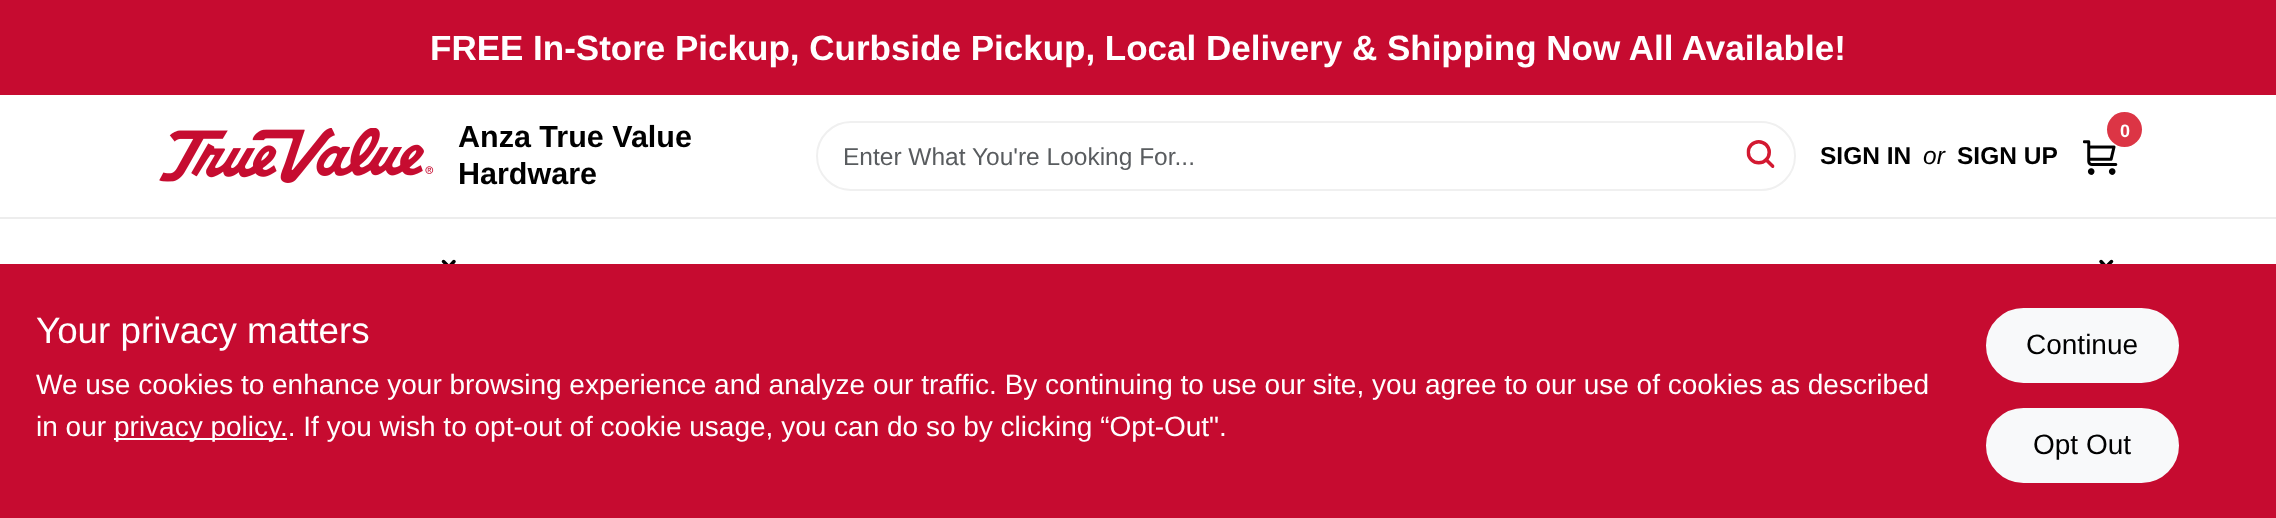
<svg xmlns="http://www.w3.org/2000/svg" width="2276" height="518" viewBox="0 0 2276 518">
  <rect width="100%" height="100%" fill="rgb(198,11,48)"/>
  <text x="430" y="60" font-family="Liberation Sans" font-size="35" font-weight="bold" fill="rgb(255,255,255)">FREE In-Store Pickup, Curbside Pickup, Local Delivery &amp; Shipping Now All Available!</text>
  <rect x="0" y="95" width="2276" height="122" fill="rgb(255,255,255)"/>
  <image x="159" y="128" width="275" height="55" href="pic1.png"/>
  <g font-family="Liberation Sans" font-size="30.5" font-weight="bold" fill="rgb(0,0,0)">
    <text>
      <tspan x="458" y="147">Anza True Value</tspan>
      <tspan x="458" y="184">Hardware</tspan>
    </text>
  </g>
  <rect x="817" y="122" width="978" height="68" rx="34" fill="none" stroke="rgb(240,240,240)" stroke-width="2"/>
  <text x="843" y="165" font-family="Liberation Sans" font-size="24.5" fill="rgb(89,92,95)">Enter What You're Looking For...</text>
  <image x="1746" y="140" width="29" height="28" href="pic2.png"/>
  <image x="2083" y="140" width="35" height="35" href="pic3.png"/>
  <circle cx="2124.5" cy="129.5" r="17.5" fill="rgb(220,53,69)"/>
  <text x="2120" y="137" font-family="Liberation Sans" font-size="18" font-weight="bold" letter-spacing="-2" fill="rgb(255,255,255)">0</text>
  <text x="1820" y="164" font-family="Liberation Sans" font-size="24.5" font-weight="bold" fill="rgb(0,0,0)">SIGN IN</text>
  <text x="1923" y="164" font-family="Liberation Sans" font-size="24.5" font-style="italic" fill="rgb(0,0,0)">or</text>
  <text x="1957" y="164" font-family="Liberation Sans" font-size="24.5" font-weight="bold" fill="rgb(0,0,0)">SIGN UP</text>
  <rect x="0" y="219" width="2276" height="45" fill="rgb(255,255,255)"/>
  <rect x="0" y="217" width="2276" height="2" fill="rgb(237,237,237)"/>
  <path d="M454 261.5L449 267L443.5 261.5" fill="none" stroke="rgb(0,0,0)" stroke-width="3.5" stroke-linecap="round" stroke-linejoin="round"/>
  <path d="M2111.5 261.5L2106 267L2101 261.5" fill="none" stroke="rgb(0,0,0)" stroke-width="3.5" stroke-linecap="round" stroke-linejoin="round"/>
  <rect x="443" y="264" width="1669" height="5" fill="rgb(198,11,48)"/>
  <text x="36" y="343" font-family="Liberation Sans" font-size="36.75" fill="rgb(255,255,255)">Your privacy matters</text>
  <g font-family="Liberation Sans" font-size="28" fill="rgb(255,255,255)">
    <text>
      <tspan x="36" y="394">We use cookies to enhance your browsing experience and analyze our traffic. By continuing to use our site, you agree to our use of cookies as described</tspan>
      <tspan x="36" y="436">in our</tspan>
    </text>
  </g>
  <rect x="114" y="438" width="173" height="2" fill="rgb(255,255,255)"/>
  <text x="114" y="436" font-family="Liberation Sans" font-size="28" fill="rgb(255,255,255)">privacy policy.. If you wish to opt-out of cookie usage, you can do so by clicking “Opt-Out".</text>
  <rect x="1987" y="309" width="191" height="73" rx="36.5" fill="rgb(248,249,250)" stroke="rgb(248,249,250)" stroke-width="2"/>
  <text x="2026" y="354" font-family="Liberation Sans" font-size="28" fill="rgb(0,0,0)">Continue</text>
  <rect x="1987" y="409" width="191" height="73" rx="36.5" fill="rgb(248,249,250)" stroke="rgb(248,249,250)" stroke-width="2"/>
  <text x="2033" y="454" font-family="Liberation Sans" font-size="28" fill="rgb(0,0,0)">Opt Out</text>
</svg>
